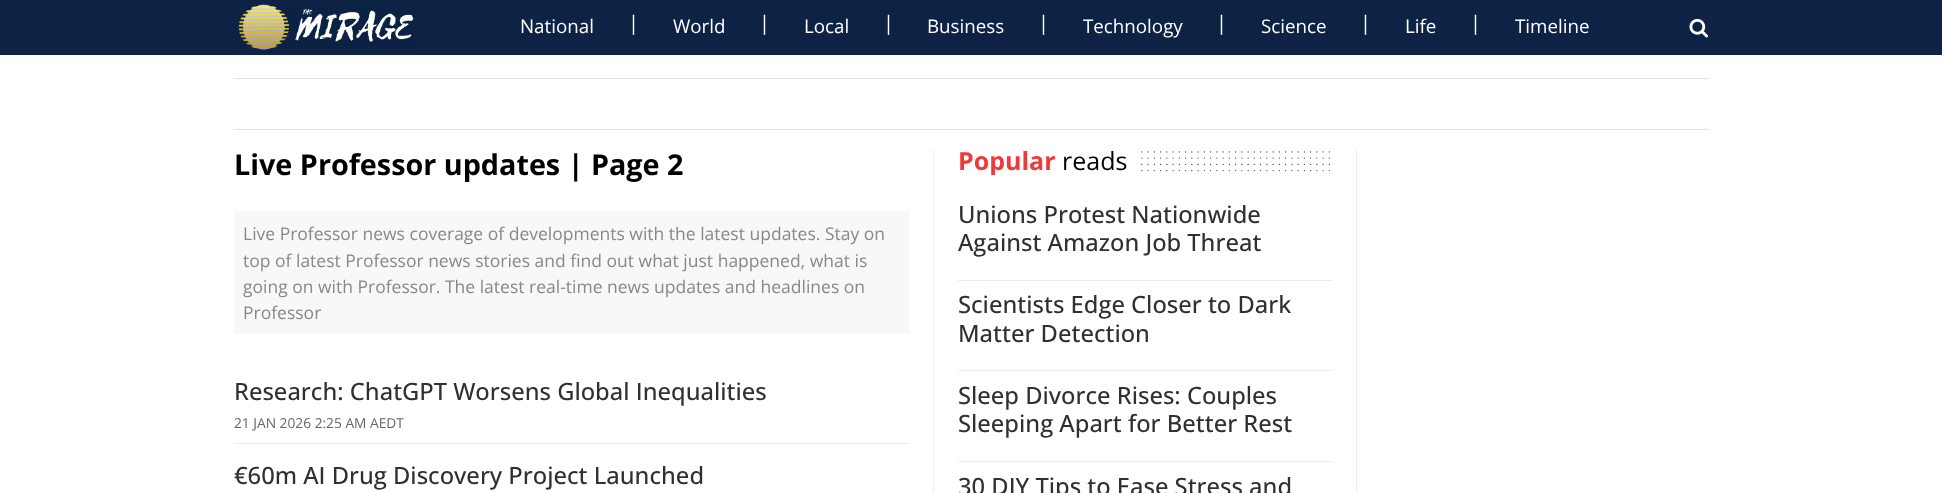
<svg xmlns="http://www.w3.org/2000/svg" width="1942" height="493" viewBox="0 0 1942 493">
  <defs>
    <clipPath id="clip1"><rect x="958" y="149" width="375" height="26"/></clipPath>
  </defs>
  <rect width="100%" height="100%" fill="rgb(255,255,255)"/>
  <rect x="0" y="0" width="1942" height="55" fill="rgb(13,34,68)"/>
  <image x="238" y="4" width="176" height="46" href="pic1.png"/>
  <text x="520" y="33" font-family="Open Sans" font-size="18.75" fill="rgb(255,255,255)">National</text>
  <text x="628" y="30" font-family="Open Sans" font-size="20" fill="rgb(255,255,255)">|</text>
  <text x="673" y="33" font-family="Open Sans" font-size="18.75" fill="rgb(255,255,255)">World</text>
  <text x="759" y="30" font-family="Open Sans" font-size="20" fill="rgb(255,255,255)">|</text>
  <text x="804" y="33" font-family="Open Sans" font-size="18.75" fill="rgb(255,255,255)">Local</text>
  <text x="883" y="30" font-family="Open Sans" font-size="20" fill="rgb(255,255,255)">|</text>
  <text x="927" y="33" font-family="Open Sans" font-size="18.75" fill="rgb(255,255,255)">Business</text>
  <text x="1038" y="30" font-family="Open Sans" font-size="20" fill="rgb(255,255,255)">|</text>
  <text x="1083" y="33" font-family="Open Sans" font-size="18.75" fill="rgb(255,255,255)">Technology</text>
  <text x="1216" y="30" font-family="Open Sans" font-size="20" fill="rgb(255,255,255)">|</text>
  <text x="1261" y="33" font-family="Open Sans" font-size="18.75" fill="rgb(255,255,255)">Science</text>
  <text x="1360" y="30" font-family="Open Sans" font-size="20" fill="rgb(255,255,255)">|</text>
  <text x="1405" y="33" font-family="Open Sans" font-size="18.75" fill="rgb(255,255,255)">Life</text>
  <text x="1470" y="30" font-family="Open Sans" font-size="20" fill="rgb(255,255,255)">|</text>
  <text x="1515" y="33" font-family="Open Sans" font-size="18.75" fill="rgb(255,255,255)">Timeline</text>
  <image x="1689" y="18" width="19" height="20" href="pic2.png"/>
  <rect x="234" y="78" width="1475" height="1" fill="rgb(227,227,227)"/>
  <rect x="234" y="129" width="1475" height="1" fill="rgb(227,227,227)"/>
  <text x="234" y="175" font-family="Open Sans" font-size="28.75" font-weight="bold" fill="rgb(0,0,0)">Live Professor updates | Page 2</text>
  <rect x="234" y="211" width="675" height="123" fill="rgb(248,248,248)"/>
  <g font-family="Open Sans" font-size="17.5" fill="rgb(136,136,136)">
    <text>
      <tspan x="243" y="240">Live Professor news coverage of developments with the latest updates. Stay on</tspan>
      <tspan x="243" y="267">top of latest Professor news stories and find out what just happened, what is</tspan>
      <tspan x="243" y="293">going on with Professor. The latest real-time news updates and headlines on</tspan>
      <tspan x="243" y="319">Professor</tspan>
    </text>
  </g>
  <rect x="234" y="443" width="675" height="1" fill="rgb(236,236,236)"/>
  <text x="234" y="400" font-family="Open Sans" font-size="23.75" font-weight="500" fill="rgb(48,48,48)">Research: ChatGPT Worsens Global Inequalities</text>
  <text x="234" y="428" font-family="Open Sans" font-size="13.75" fill="rgb(102,102,102)">21 JAN 2026 2:25 AM AEDT</text>
  <text x="234" y="484" font-family="Open Sans" font-size="23.75" font-weight="500" fill="rgb(48,48,48)">€60m AI Drug Discovery Project Launched</text>
  <rect x="933" y="149" width="1" height="344" fill="rgb(236,236,236)"/>
  <path d="M960.6 151.9H1329.6" fill="none" stroke="rgb(51,51,51)" stroke-width="1.2" stroke-linecap="round" stroke-dasharray="0 6.25"/>
  <path d="M960.6 158.1H1329.6" fill="none" stroke="rgb(51,51,51)" stroke-width="1.2" stroke-linecap="round" stroke-dasharray="0 6.25"/>
  <path d="M960.6 164.4H1329.6" fill="none" stroke="rgb(51,51,51)" stroke-width="1.2" stroke-linecap="round" stroke-dasharray="0 6.25"/>
  <path d="M960.6 170.6H1329.6" fill="none" stroke="rgb(51,51,51)" stroke-width="1.2" stroke-linecap="round" stroke-dasharray="0 6.25"/>
  <rect x="960" y="151" width="177" height="21" fill="rgb(255,255,255)"/>
  <g clip-path="url(#clip1)">
    <text x="958" y="170" font-family="Open Sans" font-size="25" font-weight="bold" fill="rgb(240,58,58)">Popular</text>
  </g>
  <text x="1062" y="170" font-family="Open Sans" font-size="25" fill="rgb(0,0,0)">reads</text>
  <rect x="958" y="280" width="375" height="1" fill="rgb(236,236,236)"/>
  <g font-family="Open Sans" font-size="23.75" font-weight="500" fill="rgb(48,48,48)">
    <text>
      <tspan x="958" y="223">Unions Protest Nationwide</tspan>
      <tspan x="958" y="251">Against Amazon Job Threat</tspan>
    </text>
  </g>
  <rect x="958" y="370" width="375" height="1" fill="rgb(236,236,236)"/>
  <g font-family="Open Sans" font-size="23.75" font-weight="500" fill="rgb(48,48,48)">
    <text>
      <tspan x="958" y="313">Scientists Edge Closer to Dark</tspan>
      <tspan x="958" y="342">Matter Detection</tspan>
    </text>
  </g>
  <rect x="958" y="461" width="375" height="1" fill="rgb(236,236,236)"/>
  <g font-family="Open Sans" font-size="23.75" font-weight="500" fill="rgb(48,48,48)">
    <text>
      <tspan x="958" y="404">Sleep Divorce Rises: Couples</tspan>
      <tspan x="958" y="432">Sleeping Apart for Better Rest</tspan>
    </text>
    <text x="958" y="495">30 DIY Tips to Ease Stress and</text>
  </g>
  <rect x="1356" y="149" width="1" height="344" fill="rgb(236,236,236)"/>
</svg>
